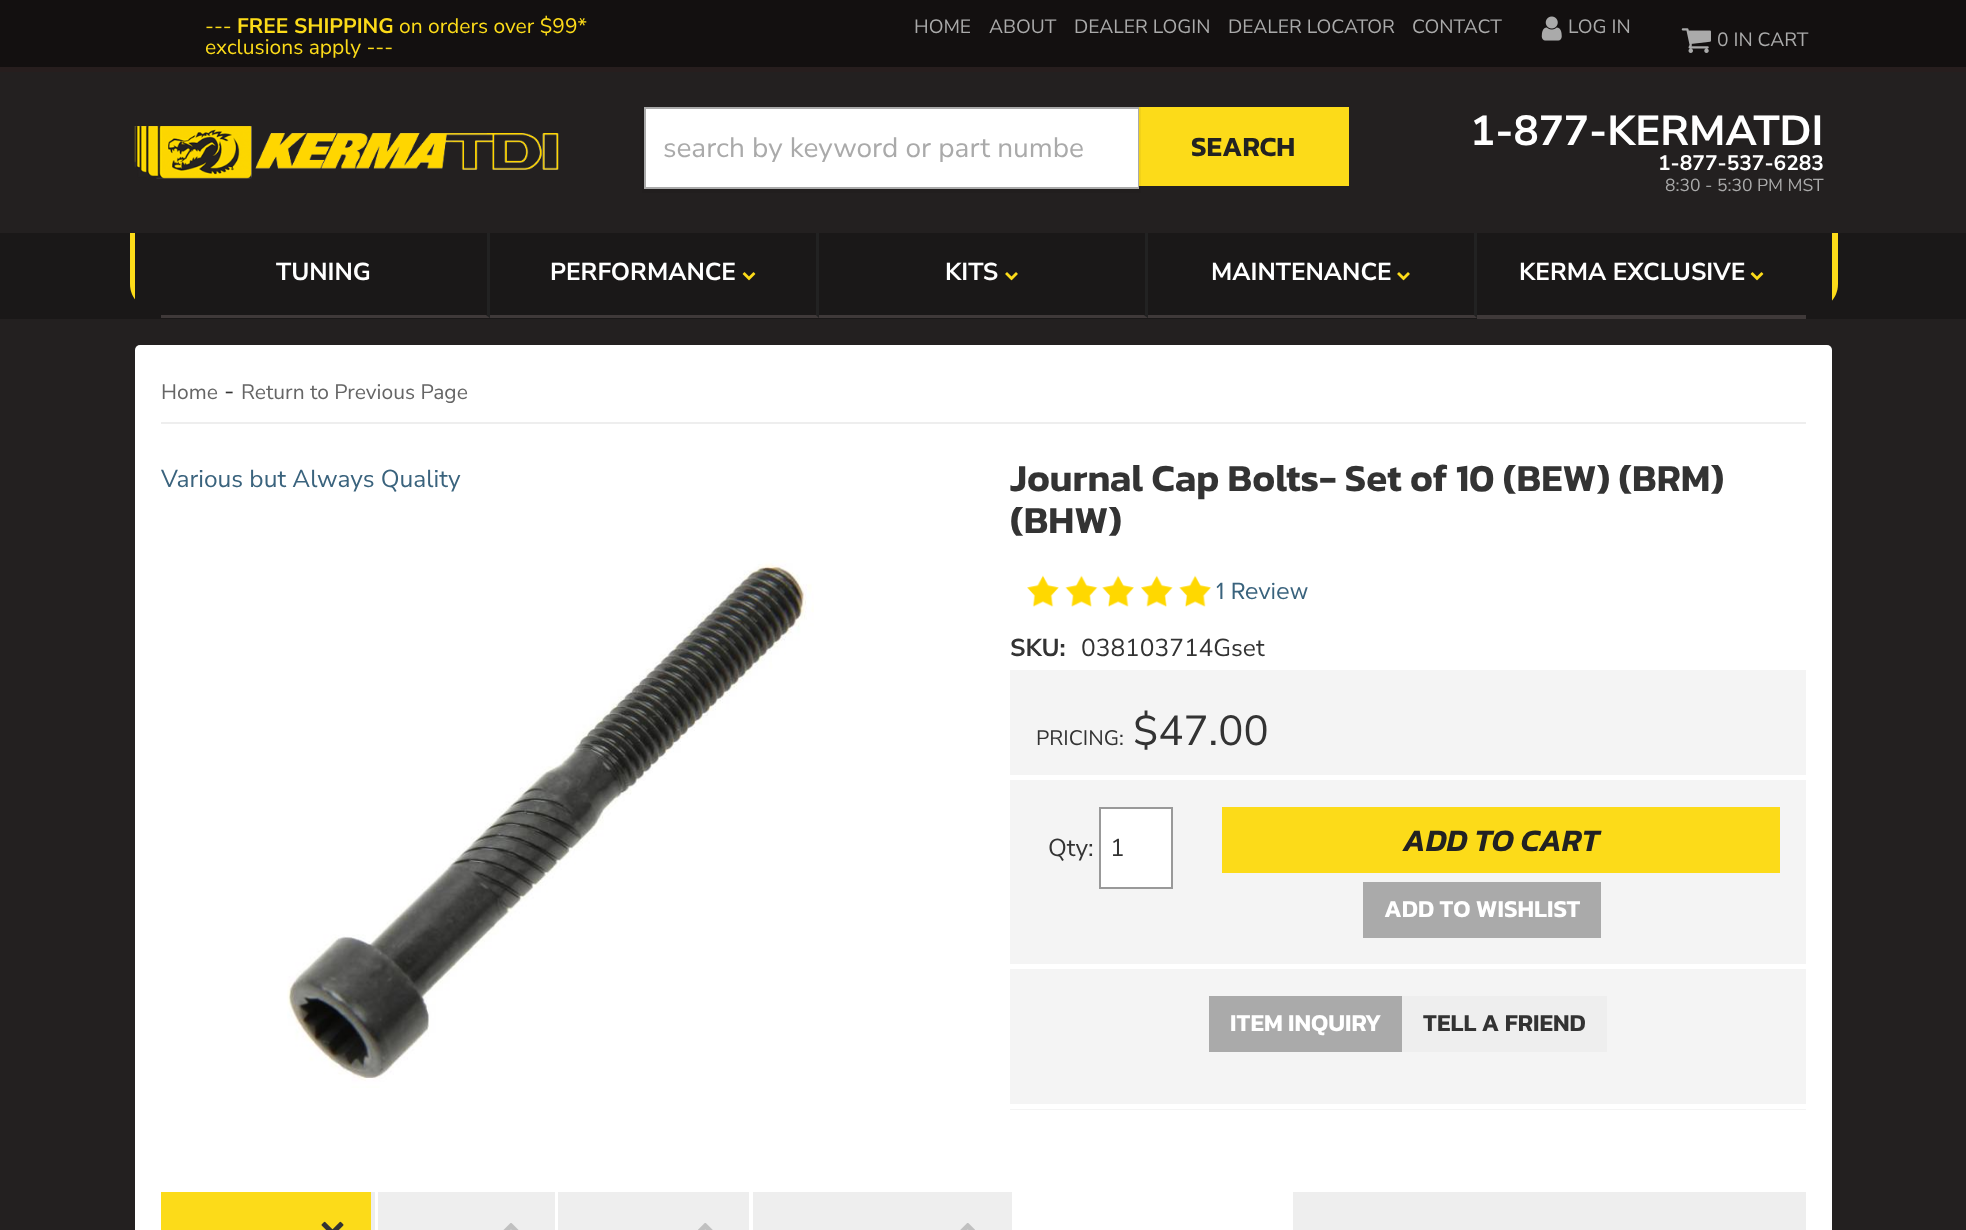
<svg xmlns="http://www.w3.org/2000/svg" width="1966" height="1230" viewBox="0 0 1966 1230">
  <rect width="100%" height="100%" fill="rgb(35,32,32)"/>
  <rect x="0" y="233" width="1966" height="86" fill="rgb(26,24,24)"/>
  <rect x="0" y="0" width="1966" height="67" fill="rgb(19,16,16)"/>
  <rect x="0" y="67" width="1966" height="5" fill="rgb(39,30,30)"/>
  <text x="205" y="33" font-family="Nunito Sans" font-size="21" fill="rgb(252,219,25)">---</text>
  <text x="237" y="33" font-family="Nunito Sans" font-size="21" font-weight="bold" fill="rgb(252,219,25)">FREE SHIPPING</text>
  <g font-family="Nunito Sans" font-size="21" fill="rgb(252,219,25)">
    <text x="399" y="33">on orders over $99*</text>
    <text x="205" y="54">exclusions apply ---</text>
  </g>
  <g font-family="Nunito Sans" font-size="19.25" fill="rgb(170,170,170)">
    <text x="914" y="33">HOME</text>
    <text x="989" y="33">ABOUT</text>
    <text x="1074" y="33">DEALER LOGIN</text>
    <text x="1228" y="33">DEALER LOCATOR</text>
    <text x="1412" y="33">CONTACT</text>
  </g>
  <image x="1541" y="16" width="21" height="25" href="pic1.png"/>
  <text x="1568" y="33" font-family="Nunito Sans" font-size="19.25" fill="rgb(170,170,170)">LOG IN</text>
  <image x="1681" y="28" width="30" height="25" href="pic2.png"/>
  <text x="1717" y="46" font-family="Nunito Sans" font-size="19.25" fill="rgb(170,170,170)">0 IN CART</text>
  <image x="134" y="126" width="425" height="53" href="pic3.png"/>
  <rect x="1139" y="107" width="210" height="79" fill="rgb(252,219,25)"/>
  <path d="M642 107V193H1141V107H1139V189H644V107Z" fill="rgba(0,0,0,0.04)"/>
  <rect x="645" y="108" width="493" height="80" fill="none" stroke="rgb(170,170,170)" stroke-width="2"/>
  <rect x="646" y="109" width="492" height="78" fill="rgb(255,255,255)"/>
  <text x="663" y="157" font-family="Nunito Sans" font-size="28" fill="rgb(170,170,170)">search by keyword or part numbe</text>
  <text x="1191" y="156" font-family="Kanit" font-size="28" font-weight="600" fill="rgb(34,34,34)">SEARCH</text>
  <text x="1470" y="145" font-family="Nunito Sans" font-size="42" font-weight="bold" fill="rgb(255,255,255)">1-877-KERMATDI</text>
  <text x="1658" y="170" font-family="Nunito Sans" font-size="21" font-weight="bold" fill="rgb(255,255,255)">1-877-537-6283</text>
  <text x="1665" y="191" font-family="Nunito Sans" font-size="17.5" fill="rgb(170,170,170)">8:30 - 5:30 PM MST</text>
  <path d="M130 233H1838V284C1838 298.5 1826.5 310 1812 310H156C141.5 310 130 298.5 130 284Z" fill="rgb(252,219,25)"/>
  <rect x="135" y="233" width="1697" height="77" fill="rgb(26,24,24)"/>
  <path d="M490 233V318L486 315V233Z" fill="rgb(34,34,34)"/>
  <path d="M490 318H161V315H486Z" fill="rgb(63,57,57)"/>
  <rect x="486" y="233" width="1" height="82" fill="rgb(26,24,24)"/>
  <text x="276" y="280" font-family="Nunito Sans" font-size="24.5" font-weight="bold" fill="rgb(255,255,255)">TUNING</text>
  <path d="M819 233V318L816 315V233Z" fill="rgb(34,34,34)"/>
  <path d="M819 318H490V315H816Z" fill="rgb(63,57,57)"/>
  <text x="550" y="280" font-family="Nunito Sans" font-size="24.5" font-weight="bold" fill="rgb(255,255,255)">PERFORMANCE</text>
  <image x="742" y="272" width="14" height="9" href="pic4.png"/>
  <path d="M1148 233V318L1144 315V233Z" fill="rgb(34,34,34)"/>
  <path d="M1148 318H819V315H1144Z" fill="rgb(63,57,57)"/>
  <rect x="1144" y="233" width="1" height="82" fill="rgb(26,24,24)"/>
  <text x="945" y="280" font-family="Nunito Sans" font-size="24.5" font-weight="bold" fill="rgb(255,255,255)">KITS</text>
  <image x="1005" y="272" width="13" height="9" href="pic5.png"/>
  <path d="M1477 233V318L1474 315V233Z" fill="rgb(34,34,34)"/>
  <path d="M1477 318H1148V315H1474Z" fill="rgb(63,57,57)"/>
  <text x="1211" y="280" font-family="Nunito Sans" font-size="24.5" font-weight="bold" fill="rgb(255,255,255)">MAINTENANCE</text>
  <image x="1397" y="272" width="13" height="9" href="pic5.png"/>
  <rect x="1477" y="315" width="329" height="4" fill="rgb(63,57,57)"/>
  <text x="1519" y="280" font-family="Nunito Sans" font-size="24.5" font-weight="bold" fill="rgb(255,255,255)">KERMA EXCLUSIVE</text>
  <image x="1750" y="272" width="14" height="9" href="pic4.png"/>
  <rect x="135" y="345" width="1697" height="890" rx="5" fill="rgb(255,255,255)"/>
  <text x="161" y="399" font-family="Nunito Sans" font-size="21" fill="rgb(102,102,102)">Home</text>
  <text x="224" y="399" font-family="Nunito Sans" font-size="24.5" fill="rgb(51,51,51)">-</text>
  <text x="241" y="399" font-family="Nunito Sans" font-size="21" fill="rgb(102,102,102)">Return to Previous Page</text>
  <rect x="161" y="422" width="1645" height="2" fill="rgb(238,238,238)"/>
  <text x="161" y="487" font-family="Nunito Sans" font-size="24.5" fill="rgb(58,99,125)">Various but Always Quality</text>
  <image x="287" y="560" width="527" height="528" href="pic6.png"/>
  <g font-family="Kanit" font-size="38.5" font-weight="600" fill="rgb(51,51,51)">
    <text>
      <tspan x="1010" y="491">Journal Cap Bolts- Set of 10 (BEW) (BRM)</tspan>
      <tspan x="1010" y="533">(BHW)</tspan>
    </text>
  </g>
  <image x="1027" y="575" width="32" height="32" href="pic7.png"/>
  <image x="1065" y="575" width="33" height="32" href="pic8.png"/>
  <image x="1102" y="575" width="32" height="32" href="pic9.png"/>
  <image x="1141" y="575" width="32" height="32" href="pic10.png"/>
  <image x="1179" y="575" width="32" height="32" href="pic9.png"/>
  <text x="1216" y="599" font-family="Proxima Nova" font-size="24.5" fill="rgb(58,99,125)">1 Review</text>
  <text x="1010" y="656" font-family="Nunito Sans" font-size="24.5" font-weight="bold" fill="rgb(51,51,51)">SKU:</text>
  <text x="1081" y="656" font-family="Nunito Sans" font-size="24.5" fill="rgb(51,51,51)">038103714Gset</text>
  <rect x="1010" y="670" width="796" height="440" fill="rgb(244,244,244)"/>
  <rect x="1010" y="1104" width="796" height="5" fill="rgb(255,255,255)"/>
  <rect x="1010" y="775" width="796" height="5" fill="rgb(255,255,255)"/>
  <text x="1036" y="745" font-family="Nunito Sans" font-size="21" fill="rgb(51,51,51)">PRICING:</text>
  <text x="1133" y="745" font-family="Nunito Sans" font-size="42" fill="rgb(51,51,51)">$47.00</text>
  <text x="1048" y="856" font-family="Nunito Sans" font-size="24.5" fill="rgb(51,51,51)">Qty:</text>
  <rect x="1100" y="808" width="72" height="80" fill="rgb(255,255,255)" stroke="rgb(153,153,153)" stroke-width="2"/>
  <text x="1110" y="856" font-family="Nunito Sans" font-size="24.5" fill="rgb(51,51,51)">1</text>
  <rect x="1222" y="807" width="558" height="66" fill="rgb(252,219,25)"/>
  <text x="1403" y="851" font-family="Kanit" font-size="31.5" font-weight="600" font-style="italic" fill="rgb(34,34,34)">ADD TO CART</text>
  <rect x="1363" y="882" width="238" height="56" fill="rgb(170,170,170)"/>
  <text x="1384" y="917" font-family="Kanit" font-size="24.5" font-weight="600" fill="rgb(255,255,255)">ADD TO WISHLIST</text>
  <rect x="1010" y="964" width="796" height="5" fill="rgb(255,255,255)"/>
  <rect x="1209" y="996" width="193" height="56" fill="rgb(170,170,170)"/>
  <text x="1230" y="1031" font-family="Kanit" font-size="24.5" font-weight="600" fill="rgb(255,255,255)">ITEM INQUIRY</text>
  <rect x="1402" y="996" width="205" height="56" fill="rgb(238,238,238)"/>
  <text x="1423" y="1031" font-family="Kanit" font-size="24.5" font-weight="600" fill="rgb(51,51,51)">TELL A FRIEND</text>
  <rect x="371" y="1192" width="4" height="38" fill="rgb(238,238,238)"/>
  <rect x="161" y="1192" width="210" height="38" fill="rgb(252,219,25)"/>
  <image x="321" y="1221" width="23" height="9" href="pic11.png"/>
  <rect x="378" y="1192" width="177" height="38" fill="rgb(238,238,238)"/>
  <image x="503" y="1223" width="16" height="7" href="pic12.png"/>
  <rect x="558" y="1192" width="191" height="38" fill="rgb(238,238,238)"/>
  <image x="698" y="1223" width="15" height="7" href="pic13.png"/>
  <rect x="753" y="1192" width="259" height="38" fill="rgb(238,238,238)"/>
  <image x="960" y="1223" width="15" height="7" href="pic14.png"/>
  <rect x="1293" y="1192" width="513" height="38" fill="rgb(238,238,238)"/>
</svg>
